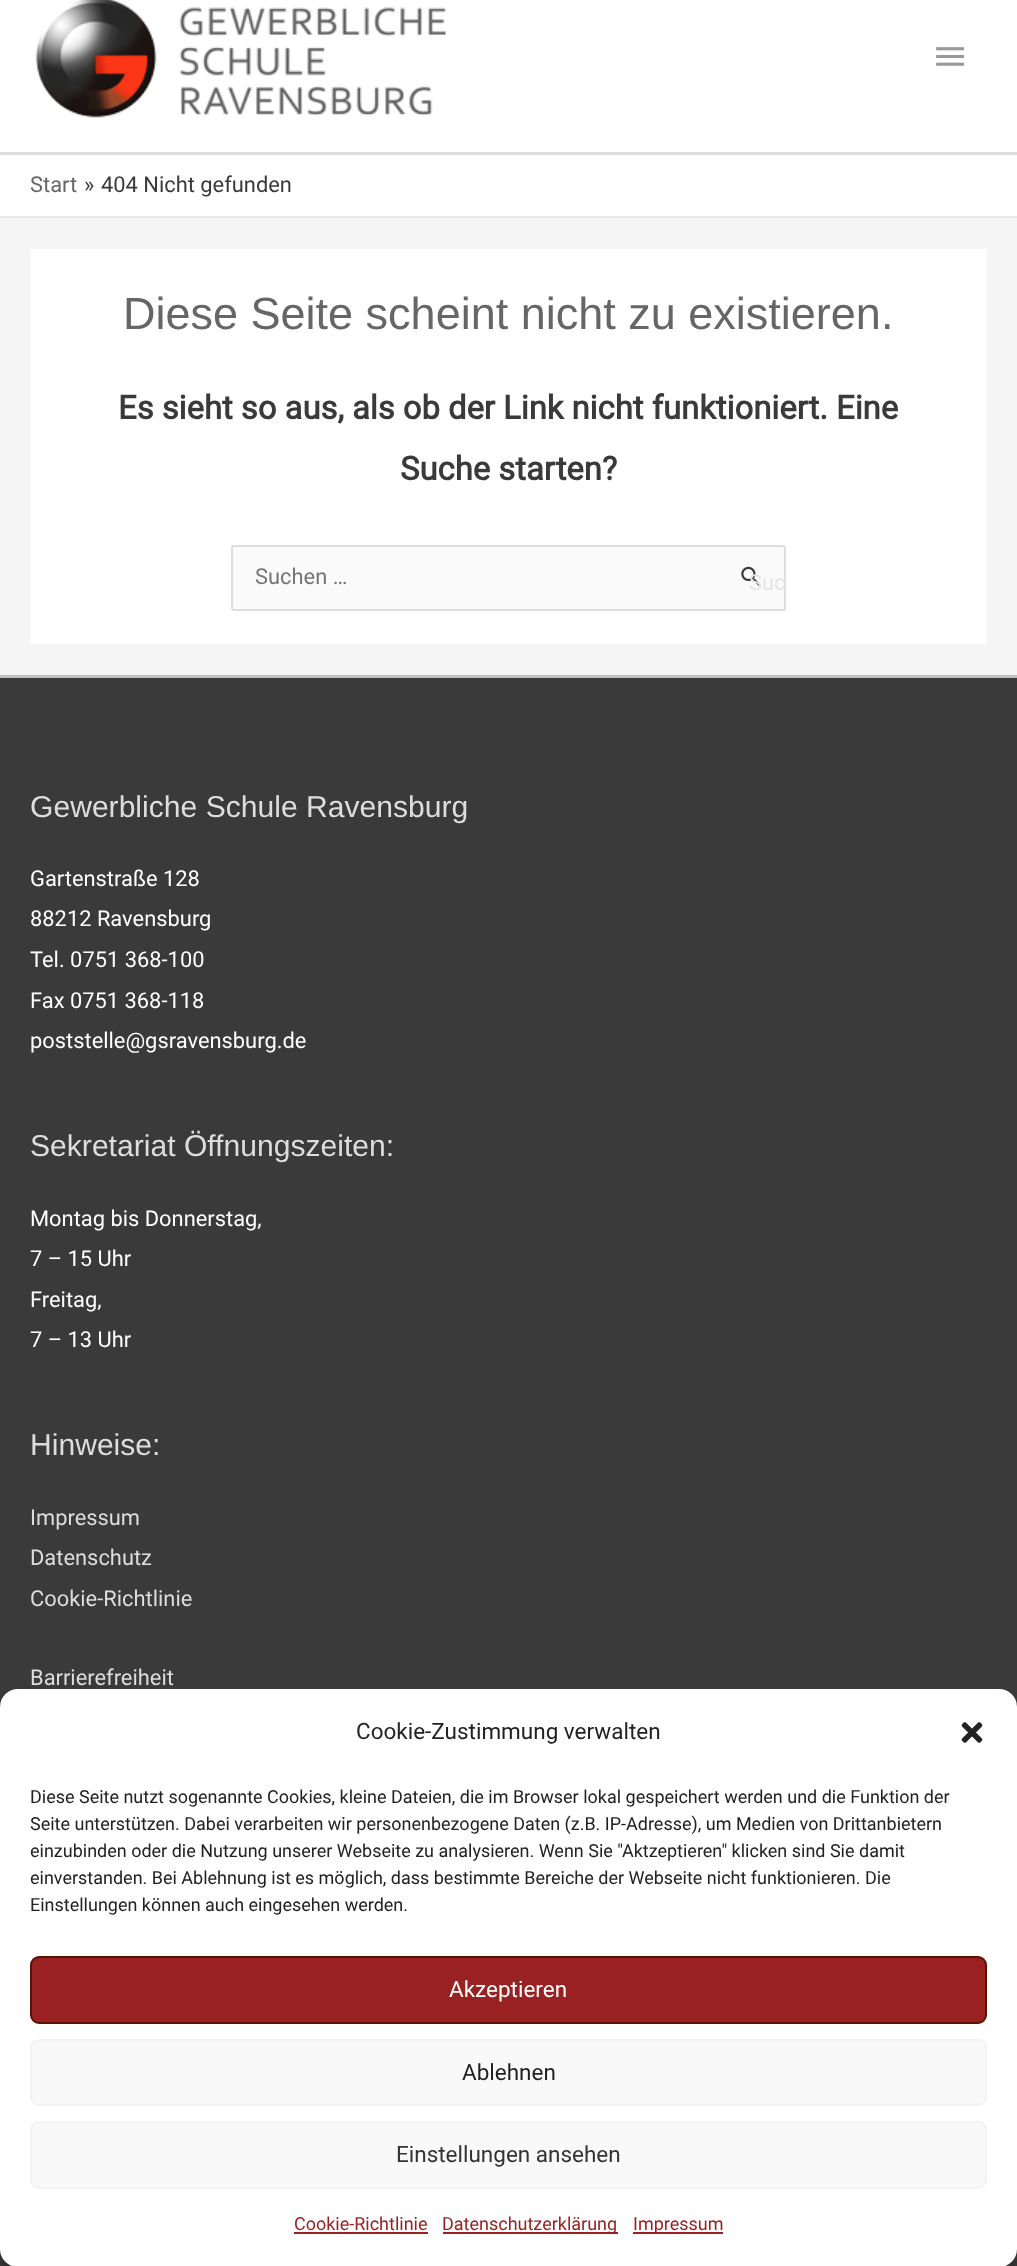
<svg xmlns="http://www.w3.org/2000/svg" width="1017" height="2266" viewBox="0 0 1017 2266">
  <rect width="100%" height="100%" fill="rgb(245,245,245)"/>
  <rect x="0" y="0" width="1017" height="152" fill="rgb(255,255,255)"/>
  <rect x="0" y="152" width="1017" height="3" fill="rgb(221,221,221)"/>
  <image x="35" y="0" width="412" height="118" href="pic1.png"/>
  <image x="936" y="47" width="29" height="19" href="pic2.png"/>
  <rect x="0" y="155" width="1017" height="61" fill="rgb(255,255,255)"/>
  <rect x="0" y="216" width="1017" height="2" fill="rgb(234,234,234)"/>
  <text x="30" y="192" font-family="Roboto" font-size="21.9" fill="rgb(102,102,102)">Start</text>
  <g font-family="Roboto" font-size="21.9" fill="rgb(58,58,58)">
    <text x="84" y="192">»</text>
    <text x="101" y="192">404 Nicht gefunden</text>
  </g>
  <rect x="30" y="249" width="957" height="395" fill="rgb(255,255,255)"/>
  <text x="123" y="329" font-family="Liberation Sans" font-size="45" fill="rgb(102,102,102)">Diese Seite scheint nicht zu existieren.</text>
  <g font-family="Roboto" font-size="32.8" font-weight="bold" fill="rgb(58,58,58)">
    <text x="118" y="419">Es sieht so aus, als ob der Link nicht funktioniert. Eine</text>
    <text x="400" y="480">Suche starten?</text>
  </g>
  <rect x="232" y="546" width="553" height="64" rx="2" fill="rgb(250,250,250)" stroke="rgb(221,221,221)" stroke-width="2"/>
  <text x="255" y="584" font-family="Roboto" font-size="21.9" fill="rgb(117,117,117)">Suchen …</text>
  <image x="741" y="566" width="20" height="20" href="pic3.png"/>
  <text x="749" y="590" font-family="Roboto" font-size="21.9" fill="rgb(229,229,229)">Suc</text>
  <rect x="0" y="678" width="1017" height="1588" fill="rgb(58,58,58)"/>
  <rect x="0" y="675" width="1017" height="3" fill="rgb(193,193,193)"/>
  <text x="30" y="817" font-family="Liberation Sans" font-size="30.1" fill="rgb(221,221,221)">Gewerbliche Schule Ravensburg</text>
  <g font-family="Roboto" font-size="21.9" fill="rgb(255,255,255)">
    <text>
      <tspan x="30" y="886">Gartenstraße 128</tspan>
      <tspan x="30" y="926">88212 Ravensburg</tspan>
      <tspan x="30" y="967">Tel. 0751 368-100</tspan>
      <tspan x="30" y="1008">Fax 0751 368-118</tspan>
      <tspan x="30" y="1048">poststelle@gsravensburg.de</tspan>
    </text>
  </g>
  <text x="30" y="1156" font-family="Liberation Sans" font-size="30.1" fill="rgb(221,221,221)">Sekretariat Öffnungszeiten:</text>
  <g font-family="Roboto" font-size="21.9" fill="rgb(255,255,255)">
    <text>
      <tspan x="30" y="1226">Montag bis Donnerstag,</tspan>
      <tspan x="30" y="1266">7 – 15 Uhr</tspan>
      <tspan x="30" y="1307">Freitag,</tspan>
      <tspan x="30" y="1347">7 – 13 Uhr</tspan>
    </text>
  </g>
  <text x="30" y="1455" font-family="Liberation Sans" font-size="30.1" fill="rgb(221,221,221)">Hinweise:</text>
  <g font-family="Roboto" font-size="21.9" fill="rgb(221,221,221)">
    <text>
      <tspan x="30" y="1525">Impressum</tspan>
      <tspan x="30" y="1565">Datenschutz</tspan>
      <tspan x="30" y="1606">Cookie-Richtlinie</tspan>
    </text>
    <text x="30" y="1685">Barrierefreiheit</text>
  </g>
  <rect x="0" y="1698" width="1017" height="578" rx="18" fill="rgba(0,0,0,0.23)" filter="blur(4.5px)"/>
  <rect x="0" y="1689" width="1017" height="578" rx="18" fill="rgb(255,255,255)"/>
  <text x="356" y="1739" font-family="Roboto" font-size="22.5" fill="rgb(34,34,34)">Cookie-Zustimmung verwalten</text>
  <image x="961" y="1722" width="22" height="21" href="pic4.png"/>
  <g font-family="Roboto" font-size="18" fill="rgb(34,34,34)">
    <text>
      <tspan x="30" y="1803">Diese Seite nutzt sogenannte Cookies, kleine Dateien, die im Browser lokal gespeichert werden und die Funktion der</tspan>
      <tspan x="30" y="1830">Seite unterstützen. Dabei verarbeiten wir personenbezogene Daten (z.B. IP-Adresse), um Medien von Drittanbietern</tspan>
      <tspan x="30" y="1857">einzubinden oder die Nutzung unserer Webseite zu analysieren. Wenn Sie "Aktzeptieren" klicken sind Sie damit</tspan>
      <tspan x="30" y="1884">einverstanden. Bei Ablehnung ist es möglich, dass bestimmte Bereiche der Webseite nicht funktionieren. Die</tspan>
      <tspan x="30" y="1911">Einstellungen können auch eingesehen werden.</tspan>
    </text>
  </g>
  <rect x="31" y="1957" width="955" height="66" rx="8" fill="rgb(153,33,33)" stroke="rgb(89,19,0)" stroke-width="2"/>
  <text x="449" y="1997" font-family="Roboto" font-size="22.5" fill="rgb(255,255,255)">Akzeptieren</text>
  <rect x="31" y="2040" width="955" height="65" rx="8" fill="rgb(249,249,249)" stroke="rgb(242,242,242)" stroke-width="2"/>
  <text x="462" y="2080" font-family="Roboto" font-size="22.5" fill="rgb(34,34,34)">Ablehnen</text>
  <rect x="31" y="2122" width="955" height="66" rx="8" fill="rgb(249,249,249)" stroke="rgb(242,242,242)" stroke-width="2"/>
  <text x="396" y="2162" font-family="Roboto" font-size="22.5" fill="rgb(51,51,51)">Einstellungen ansehen</text>
  <text x="294" y="2230" font-family="Roboto" font-size="18" fill="rgb(153,33,33)">Cookie-Richtlinie</text>
  <rect x="294" y="2232" width="134" height="2" fill="rgb(153,33,33)"/>
  <rect x="443" y="2232" width="175" height="2" fill="rgb(153,33,33)"/>
  <text x="442" y="2230" font-family="Roboto" font-size="18" fill="rgb(153,33,33)">Datenschutzerklärung</text>
  <rect x="633" y="2232" width="90" height="2" fill="rgb(153,33,33)"/>
  <text x="633" y="2230" font-family="Roboto" font-size="18" fill="rgb(153,33,33)">Impressum</text>
</svg>
